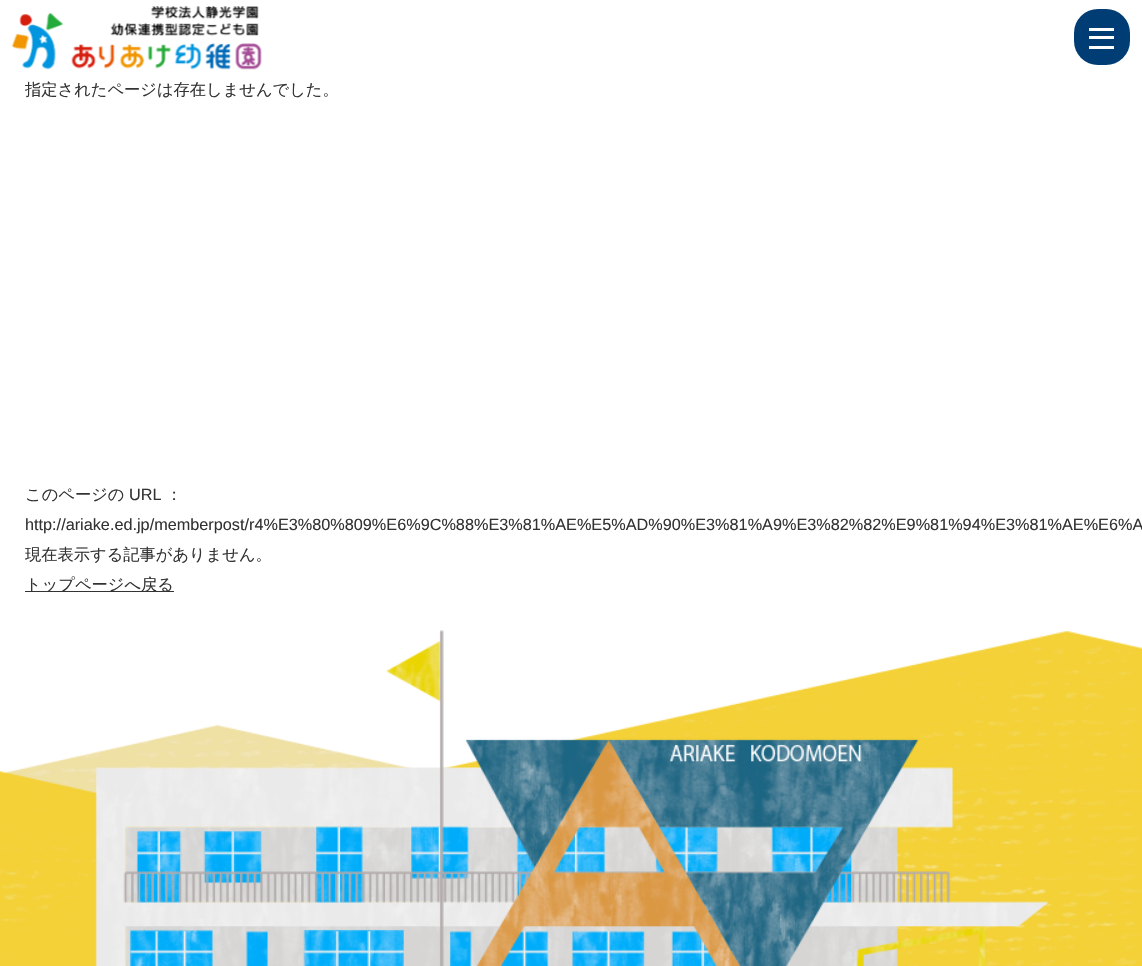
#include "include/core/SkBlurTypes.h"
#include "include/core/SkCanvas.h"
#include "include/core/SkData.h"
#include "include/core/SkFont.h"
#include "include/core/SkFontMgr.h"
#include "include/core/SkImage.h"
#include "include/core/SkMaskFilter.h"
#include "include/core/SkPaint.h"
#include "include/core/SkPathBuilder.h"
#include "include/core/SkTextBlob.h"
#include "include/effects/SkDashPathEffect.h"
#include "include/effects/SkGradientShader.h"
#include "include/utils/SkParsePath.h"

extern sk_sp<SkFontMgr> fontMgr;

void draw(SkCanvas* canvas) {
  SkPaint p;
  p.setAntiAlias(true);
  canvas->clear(SK_ColorWHITE);
  canvas->drawImageRect(SkImages::DeferredFromEncodedData(SkData::MakeFromFileName("images/1.png")), SkRect::MakeLTRB(12, 6, 262, 70), SkSamplingOptions());
  p.setColor(SkColorSetRGB(0, 61, 117));
  canvas->drawRoundRect(SkRect::MakeLTRB(1074, 9, 1130, 65), 24, 24, p);
  p.setColor(SK_ColorWHITE);
  canvas->drawRect(SkRect::MakeLTRB(1089, 36, 1114, 39), p);
  canvas->drawRect(SkRect::MakeLTRB(1089, 28, 1114, 31), p);
  canvas->drawRect(SkRect::MakeLTRB(1089, 46, 1114, 49), p);
  p.setColor(SkColorSetRGB(51, 51, 51));
  canvas->drawRect(SkRect::MakeLTRB(25, 591, 174, 592), p);
  canvas->drawImageRect(SkImages::DeferredFromEncodedData(SkData::MakeFromFileName("images/2.png")), SkRect::MakeLTRB(0, 631, 1142, 966), SkSamplingOptions());
  canvas->drawImageRect(SkImages::DeferredFromEncodedData(SkData::MakeFromFileName("images/3.png")), SkRect::MakeLTRB(95, 630, 1048, 966), SkSamplingOptions());
  SkFont font1(fontMgr->matchFamilyStyle("WenQuanYi Zen Hei", SkFontStyle(500, SkFontStyle::kNormal_Width, SkFontStyle::kUpright_Slant)), 16.25f);
  font1.setSubpixel(true);
  canvas->drawString("指定されたページは存在しませんでした。", 25, 95, font1, p);
  canvas->drawString("このページの", 25, 500, font1, p);
  SkFont font2(fontMgr->matchFamilyStyle("Liberation Sans", SkFontStyle::Normal()), 16.25f);
  font2.setSubpixel(true);
  canvas->drawString("URL", 129, 500, font2, p);
  canvas->drawString("：", 166, 500, font1, p);
  canvas->drawString("http://ariake.ed.jp/memberpost/r4%E3%80%809%E6%9C%88%E3%81%AE%E5%AD%90%E3%81%A9%E3%82%82%E9%81%94%E3%81%AE%E6%A", 25, 530, font2, p);
  canvas->drawString("現在表示する記事がありません。", 25, 560, font1, p);
  canvas->drawString("トップページへ戻る", 25, 590, font1, p);
}
